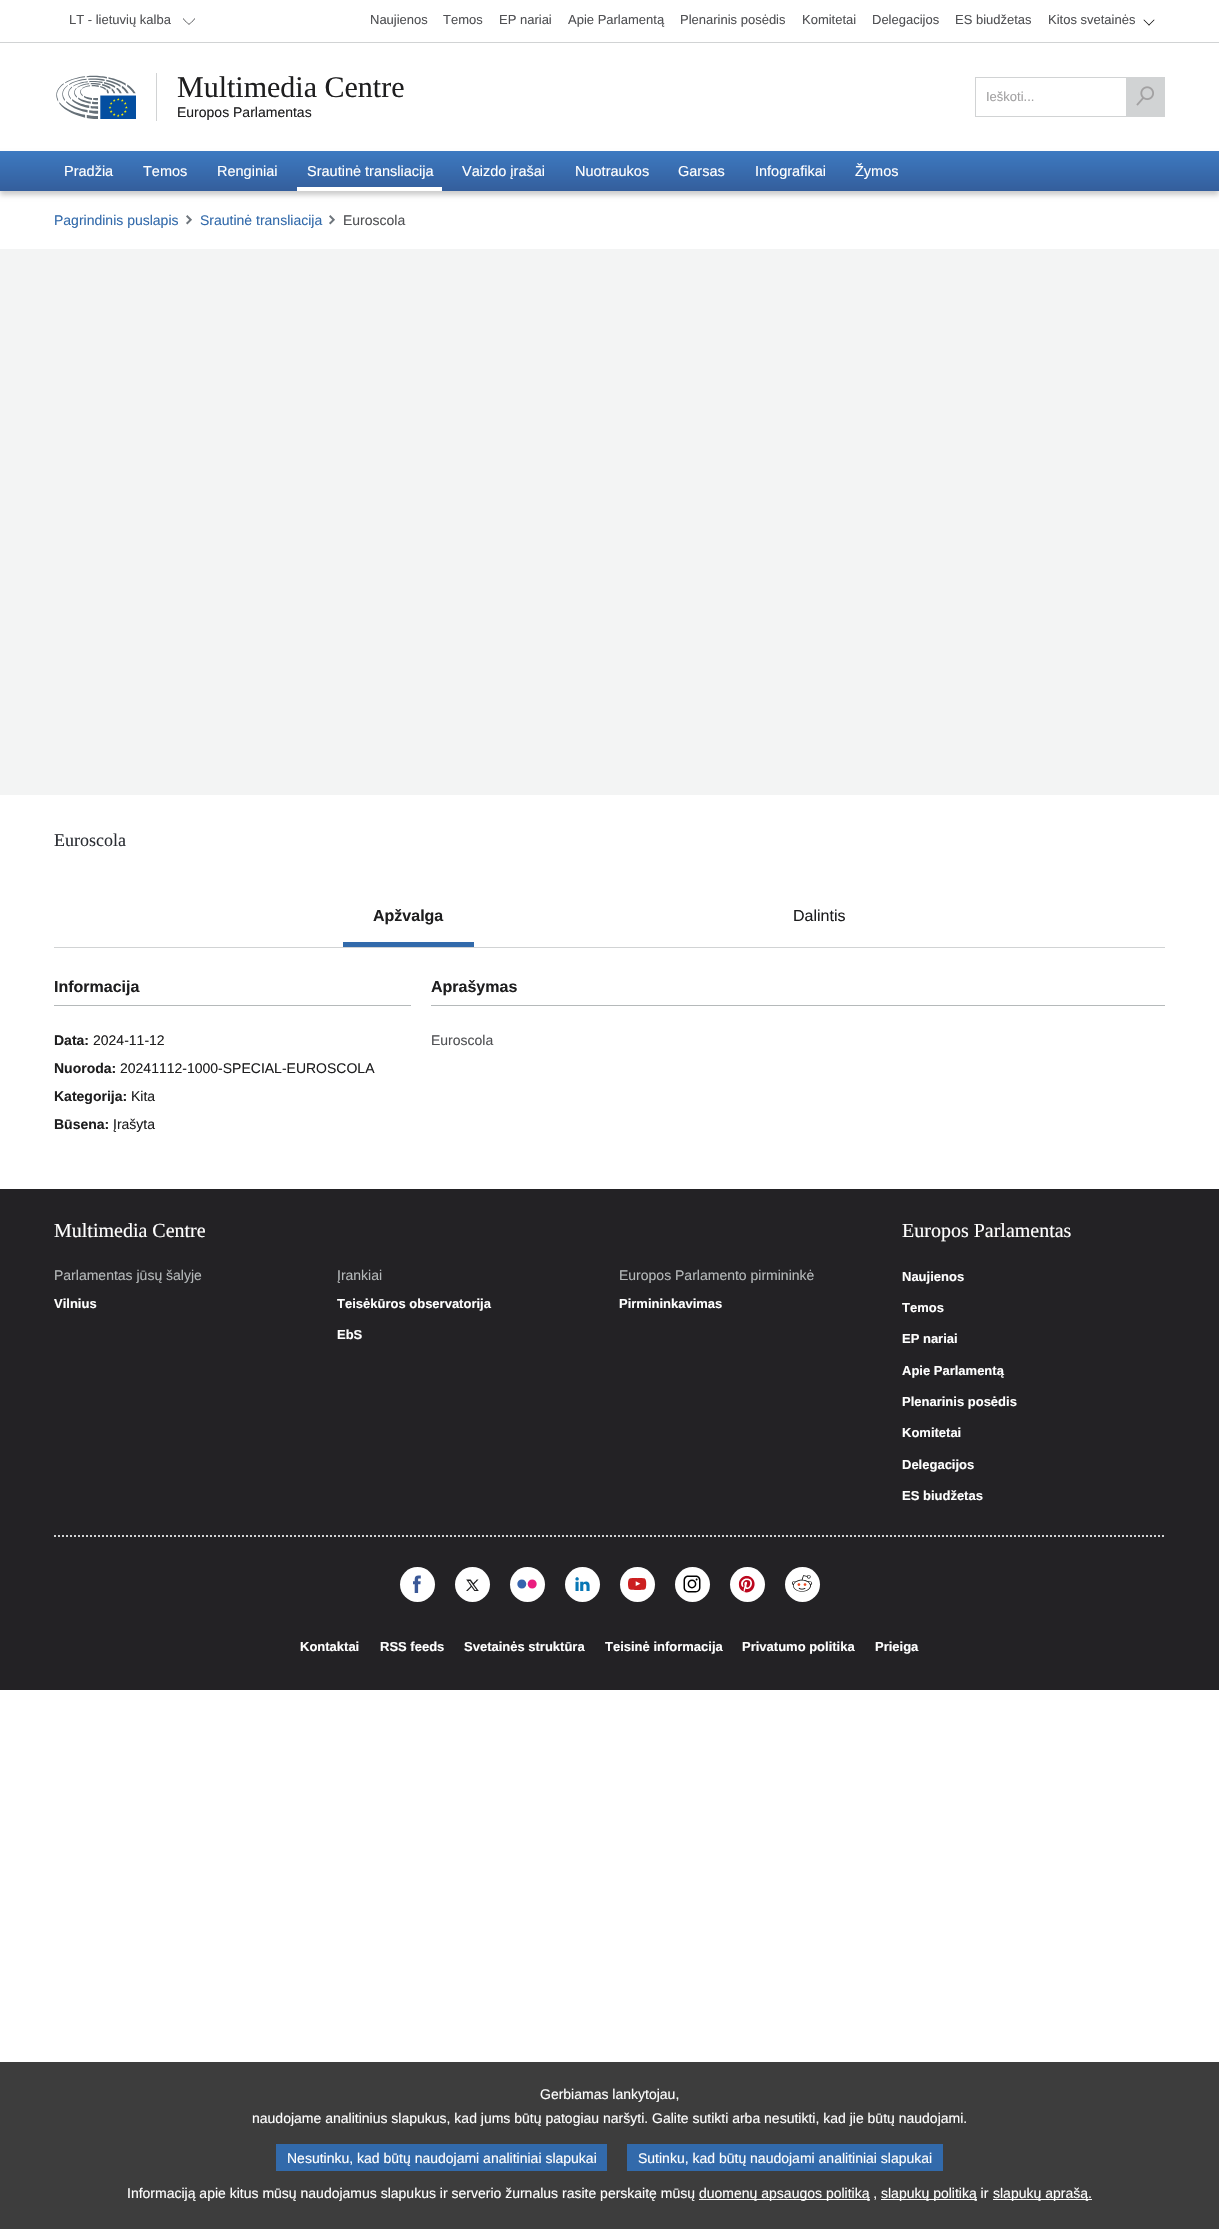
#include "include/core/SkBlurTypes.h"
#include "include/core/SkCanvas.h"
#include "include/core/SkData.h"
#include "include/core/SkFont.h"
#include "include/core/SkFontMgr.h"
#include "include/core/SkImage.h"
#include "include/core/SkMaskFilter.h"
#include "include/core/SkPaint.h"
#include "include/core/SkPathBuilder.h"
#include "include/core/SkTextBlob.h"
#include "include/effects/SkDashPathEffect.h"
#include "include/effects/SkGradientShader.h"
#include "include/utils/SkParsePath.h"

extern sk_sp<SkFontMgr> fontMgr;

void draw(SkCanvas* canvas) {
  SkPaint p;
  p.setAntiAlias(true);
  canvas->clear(SK_ColorWHITE);
  p.setColor(SkColorSetRGB(209, 211, 212));
  canvas->drawRect(SkRect::MakeLTRB(0, 42, 1219, 43), p);
  p.setStyle(SkPaint::kStroke_Style);
  p.setStrokeWidth(1);
  p.setColor(SkColorSetRGB(80, 81, 84));
  canvas->drawPath(SkPathBuilder().moveTo(194.5f, 18.5f).cubicTo(194.5f, 19.5f, 193, 21, 192, 21.5f).cubicTo(189, 25, 189, 25, 186, 21.5f).cubicTo(185, 21, 183.5f, 19.5f, 183.5f, 18.5f).detach(), p);
  p.setStyle(SkPaint::kFill_Style);
  p.setColor(SK_ColorBLACK);
  canvas->drawPath(SkPathBuilder().moveTo(1154, 19.5f).lineTo(1154.5f, 20).lineTo(1149, 25.5f).lineTo(1148.5f, 25).close().detach(), p);
  canvas->drawPath(SkPathBuilder().moveTo(1144, 19.5f).lineTo(1149.5f, 25).lineTo(1149, 25.5f).lineTo(1143.5f, 20).close().detach(), p);
  canvas->drawImageRect(SkImages::DeferredFromEncodedData(SkData::MakeFromFileName("images/1.png")), SkRect::MakeLTRB(56, 75, 136, 119), SkSamplingOptions());
  p.setColor(SkColorSetRGB(209, 211, 212));
  canvas->drawRect(SkRect::MakeLTRB(156, 73, 157, 121), p);
  p.setStyle(SkPaint::kStroke_Style);
  canvas->drawRect(SkRect::MakeLTRB(975.5f, 77.5f, 1164.5f, 116.5f), p);
  p.setStyle(SkPaint::kFill_Style);
  canvas->drawRect(SkRect::MakeLTRB(1126, 78, 1164, 116), p);
  canvas->drawImageRect(SkImages::DeferredFromEncodedData(SkData::MakeFromFileName("images/2.png")), SkRect::MakeLTRB(1136, 86, 1154, 106), SkSamplingOptions());
  p.setColor(SkColorSetARGB(51, 0, 0, 0));
  p.setMaskFilter(SkMaskFilter::MakeBlur(kNormal_SkBlurStyle, 2.5f));
  canvas->drawRect(SkRect::MakeLTRB(0, 155, 1219, 195), p);
  p.setMaskFilter(nullptr);
  {
    const SkColor colors[] = {SkColorSetRGB(61, 122, 193), SkColorSetRGB(52, 94, 156)};
    const float stops[] = {0, 1};
    const SkPoint ends[] = {{610, 151}, {610, 191}};
    p.setShader(SkGradientShader::MakeLinear(ends, colors, stops, 2, SkTileMode::kClamp));
    p.setAlpha(255);
  }
  canvas->drawRect(SkRect::MakeLTRB(0, 151, 1219, 191), p);
  p.setShader(nullptr);
  p.setColor(SK_ColorWHITE);
  canvas->drawRect(SkRect::MakeLTRB(297, 187, 442, 191), p);
  canvas->drawImageRect(SkImages::DeferredFromEncodedData(SkData::MakeFromFileName("images/3.png")), SkRect::MakeLTRB(186, 215, 192, 225), SkSamplingOptions());
  canvas->drawImageRect(SkImages::DeferredFromEncodedData(SkData::MakeFromFileName("images/3.png")), SkRect::MakeLTRB(329, 215, 335, 225), SkSamplingOptions());
  p.setColor(SkColorSetRGB(243, 244, 244));
  canvas->drawRect(SkRect::MakeLTRB(0, 249, 1219, 795), p);
  p.setColor(SkColorSetRGB(209, 211, 212));
  canvas->drawRect(SkRect::MakeLTRB(54, 947, 1165, 948), p);
  p.setColor(SkColorSetRGB(50, 106, 171));
  canvas->drawRect(SkRect::MakeLTRB(343, 942, 474, 947), p);
  p.setColor(SkColorSetRGB(181, 185, 186));
  canvas->drawRect(SkRect::MakeLTRB(54, 1005, 411, 1006), p);
  canvas->drawRect(SkRect::MakeLTRB(431, 1005, 1165, 1006), p);
  p.setColor(SkColorSetRGB(35, 34, 37));
  canvas->drawRect(SkRect::MakeLTRB(0, 1189, 1219, 1690), p);
  p.setStyle(SkPaint::kStroke_Style);
  p.setStrokeWidth(2);
  p.setColor(SkColorSetRGB(209, 211, 212));
  p.setPathEffect(SkDashPathEffect::Make({{2, 2}}, 0));
  canvas->drawPath(SkPathBuilder().moveTo(54, 1536).lineTo(1165, 1536).detach(), p);
  p.setPathEffect(nullptr);
  p.setStyle(SkPaint::kFill_Style);
  p.setColor(SK_ColorWHITE);
  canvas->drawCircle(417.5f, 1584.5f, 17.5f, p);
  canvas->drawImageRect(SkImages::DeferredFromEncodedData(SkData::MakeFromFileName("images/4.png")), SkRect::MakeLTRB(413, 1575, 421, 1593), SkSamplingOptions());
  canvas->drawCircle(472.5f, 1584.5f, 17.5f, p);
  canvas->drawImageRect(SkImages::DeferredFromEncodedData(SkData::MakeFromFileName("images/5.png")), SkRect::MakeLTRB(466, 1579, 479, 1591), SkSamplingOptions());
  canvas->drawCircle(527.5f, 1584.5f, 17.5f, p);
  canvas->drawImageRect(SkImages::DeferredFromEncodedData(SkData::MakeFromFileName("images/6.png")), SkRect::MakeLTRB(517, 1579, 537, 1589), SkSamplingOptions());
  canvas->drawCircle(582.5f, 1584.5f, 17.5f, p);
  canvas->drawImageRect(SkImages::DeferredFromEncodedData(SkData::MakeFromFileName("images/7.png")), SkRect::MakeLTRB(575, 1577, 590, 1591), SkSamplingOptions());
  canvas->drawCircle(637.5f, 1584.5f, 17.5f, p);
  canvas->drawImageRect(SkImages::DeferredFromEncodedData(SkData::MakeFromFileName("images/8.png")), SkRect::MakeLTRB(628, 1578, 647, 1590), SkSamplingOptions());
  canvas->drawCircle(692.5f, 1584.5f, 17.5f, p);
  canvas->drawImageRect(SkImages::DeferredFromEncodedData(SkData::MakeFromFileName("images/9.png")), SkRect::MakeLTRB(683, 1575, 701, 1593), SkSamplingOptions());
  canvas->drawCircle(747.5f, 1584.5f, 17.5f, p);
  canvas->drawImageRect(SkImages::DeferredFromEncodedData(SkData::MakeFromFileName("images/10.png")), SkRect::MakeLTRB(738, 1575, 755, 1593), SkSamplingOptions());
  canvas->drawCircle(802.5f, 1584.5f, 17.5f, p);
  canvas->drawImageRect(SkImages::DeferredFromEncodedData(SkData::MakeFromFileName("images/11.png")), SkRect::MakeLTRB(792, 1575, 813, 1592), SkSamplingOptions());
  p.setColor(SkColorSetRGB(61, 61, 61));
  canvas->drawRect(SkRect::MakeLTRB(0, 2062, 1219, 2229), p);
  p.setColor(SkColorSetRGB(50, 106, 171));
  canvas->drawRect(SkRect::MakeLTRB(276, 2144, 607, 2171), p);
  canvas->drawRect(SkRect::MakeLTRB(627, 2144, 943, 2171), p);
  p.setColor(SK_ColorWHITE);
  canvas->drawRect(SkRect::MakeLTRB(699, 2199, 870, 2200), p);
  canvas->drawRect(SkRect::MakeLTRB(881, 2199, 977, 2200), p);
  canvas->drawRect(SkRect::MakeLTRB(993, 2199, 1092, 2200), p);
  SkFont font1(fontMgr->matchFamilyStyle("Liberation Sans", SkFontStyle::Normal()), 13);
  font1.setSubpixel(true);
  p.setColor(SkColorSetRGB(80, 81, 84));
  canvas->drawString("LT - lietuvių kalba", 69, 24, font1, p);
  canvas->drawString("Naujienos", 370, 24, font1, p);
  canvas->drawString("Temos", 443, 24, font1, p);
  canvas->drawString("EP nariai", 499, 24, font1, p);
  canvas->drawString("Apie Parlamentą", 568, 24, font1, p);
  canvas->drawString("Plenarinis posėdis", 680, 24, font1, p);
  canvas->drawString("Komitetai", 802, 24, font1, p);
  canvas->drawString("Delegacijos", 872, 24, font1, p);
  canvas->drawString("ES biudžetas", 955, 24, font1, p);
  canvas->drawString("Kitos svetainės", 1048, 24, font1, p);
  SkFont font2(fontMgr->matchFamilyStyle("Liberation Serif", SkFontStyle::Normal()), 30);
  font2.setSubpixel(true);
  p.setColor(SkColorSetRGB(30, 30, 31));
  canvas->drawString("Multimedia Centre", 177, 97, font2, p);
  SkFont font3(fontMgr->matchFamilyStyle("Liberation Sans", SkFontStyle::Normal()), 14);
  font3.setSubpixel(true);
  canvas->drawString("Europos Parlamentas", 177, 117, font3, p);
  p.setColor(SkColorSetRGB(162, 161, 162));
  canvas->drawString("Ieškoti...", 986, 101, font1, p);
  SkFont font4(fontMgr->matchFamilyStyle("Liberation Sans", SkFontStyle::Normal()), 14.5f);
  font4.setSubpixel(true);
  p.setColor(SK_ColorWHITE);
  canvas->drawString("Pradžia", 64, 176, font4, p);
  canvas->drawString("Temos", 143, 176, font4, p);
  canvas->drawString("Renginiai", 217, 176, font4, p);
  canvas->drawString("Srautinė transliacija", 307, 176, font4, p);
  canvas->drawString("Vaizdo įrašai", 462, 176, font4, p);
  canvas->drawString("Nuotraukos", 575, 176, font4, p);
  canvas->drawString("Garsas", 678, 176, font4, p);
  canvas->drawString("Infografikai", 755, 176, font4, p);
  canvas->drawString("Žymos", 855, 176, font4, p);
  p.setColor(SkColorSetRGB(50, 106, 171));
  canvas->drawString("Pagrindinis puslapis", 54, 225, font3, p);
  canvas->drawString("Srautinė transliacija", 200, 225, font3, p);
  p.setColor(SkColorSetRGB(80, 81, 84));
  canvas->drawString("Euroscola", 343, 225, font3, p);
  SkFont font5(fontMgr->matchFamilyStyle("Liberation Serif", SkFontStyle::Normal()), 18);
  font5.setSubpixel(true);
  p.setColor(SkColorSetRGB(43, 46, 52));
  canvas->drawString("Euroscola", 54, 846, font5, p);
  SkFont font6(fontMgr->matchFamilyStyle("Liberation Sans", SkFontStyle::Bold()), 16);
  font6.setSubpixel(true);
  p.setColor(SkColorSetRGB(30, 30, 31));
  canvas->drawString("Apžvalga", 373, 921, font6, p);
  SkFont font7(fontMgr->matchFamilyStyle("Liberation Sans", SkFontStyle::Normal()), 16);
  font7.setSubpixel(true);
  canvas->drawString("Dalintis", 793, 921, font7, p);
  canvas->drawString("Informacija", 54, 992, font6, p);
  SkFont font8(fontMgr->matchFamilyStyle("Liberation Sans", SkFontStyle::Bold()), 14);
  font8.setSubpixel(true);
  canvas->drawString("Data:", 54, 1045, font8, p);
  canvas->drawString("2024-11-12", 93, 1045, font3, p);
  canvas->drawString("Nuoroda:", 54, 1073, font8, p);
  canvas->drawString("20241112-1000-SPECIAL-EUROSCOLA", 120, 1073, font3, p);
  canvas->drawString("Kategorija:", 54, 1101, font8, p);
  canvas->drawString("Kita", 131, 1101, font3, p);
  canvas->drawString("Būsena:", 54, 1129, font8, p);
  canvas->drawString("Įrašyta", 113, 1129, font3, p);
  canvas->drawString("Aprašymas", 431, 992, font6, p);
  p.setColor(SkColorSetRGB(80, 81, 84));
  canvas->drawString("Euroscola", 431, 1045, font3, p);
  SkFont font9(fontMgr->matchFamilyStyle("Liberation Serif", SkFontStyle::Normal()), 20);
  font9.setSubpixel(true);
  p.setColor(SK_ColorWHITE);
  canvas->drawString("Multimedia Centre", 54, 1237, font9, p);
  p.setColor(SkColorSetRGB(181, 185, 186));
  canvas->drawString("Parlamentas jūsų šalyje", 54, 1280, font3, p);
  SkFont font10(fontMgr->matchFamilyStyle("Liberation Sans", SkFontStyle::Bold()), 13);
  font10.setSubpixel(true);
  p.setColor(SK_ColorWHITE);
  canvas->drawString("Vilnius", 54, 1308, font10, p);
  p.setColor(SkColorSetRGB(181, 185, 186));
  canvas->drawString("Įrankiai", 337, 1280, font3, p);
  p.setColor(SK_ColorWHITE);
  canvas->drawString("Teisėkūros observatorija", 337, 1308, font10, p);
  canvas->drawString("EbS", 337, 1339, font10, p);
  p.setColor(SkColorSetRGB(181, 185, 186));
  canvas->drawString("Europos Parlamento pirmininkė", 619, 1280, font3, p);
  p.setColor(SK_ColorWHITE);
  canvas->drawString("Pirmininkavimas", 619, 1308, font10, p);
  canvas->drawString("Europos Parlamentas", 902, 1237, font9, p);
  canvas->drawString("Naujienos", 902, 1281, font10, p);
  canvas->drawString("Temos", 902, 1312, font10, p);
  canvas->drawString("EP nariai", 902, 1343, font10, p);
  canvas->drawString("Apie Parlamentą", 902, 1375, font10, p);
  canvas->drawString("Plenarinis posėdis", 902, 1406, font10, p);
  canvas->drawString("Komitetai", 902, 1437, font10, p);
  canvas->drawString("Delegacijos", 902, 1469, font10, p);
  canvas->drawString("ES biudžetas", 902, 1500, font10, p);
  canvas->drawString("Kontaktai", 300, 1651, font10, p);
  canvas->drawString("RSS feeds", 380, 1651, font10, p);
  canvas->drawString("Svetainės struktūra", 464, 1651, font10, p);
  canvas->drawString("Teisinė informacija", 605, 1651, font10, p);
  canvas->drawString("Privatumo politika", 742, 1651, font10, p);
  canvas->drawString("Prieiga", 875, 1651, font10, p);
  canvas->drawString("Gerbiamas lankytojau,", 540, 2099, font3, p);
  canvas->drawString("naudojame analitinius slapukus, kad jums būtų patogiau naršyti. Galite sutikti arba nesutikti, kad jie būtų naudojami.", 252, 2123, font3, p);
  canvas->drawString("Nesutinku, kad būtų naudojami analitiniai slapukai", 287, 2163, font3, p);
  canvas->drawString("Sutinku, kad būtų naudojami analitiniai slapukai", 638, 2163, font3, p);
  canvas->drawString("Informaciją apie kitus mūsų naudojamus slapukus ir serverio žurnalus rasite perskaitę mūsų", 127, 2198, font3, p);
  canvas->drawString("duomenų apsaugos politiką ,", 699, 2198, font3, p);
  canvas->drawString("slapukų politiką ir", 881, 2198, font3, p);
  canvas->drawString("slapukų aprašą.", 993, 2198, font3, p);
}
